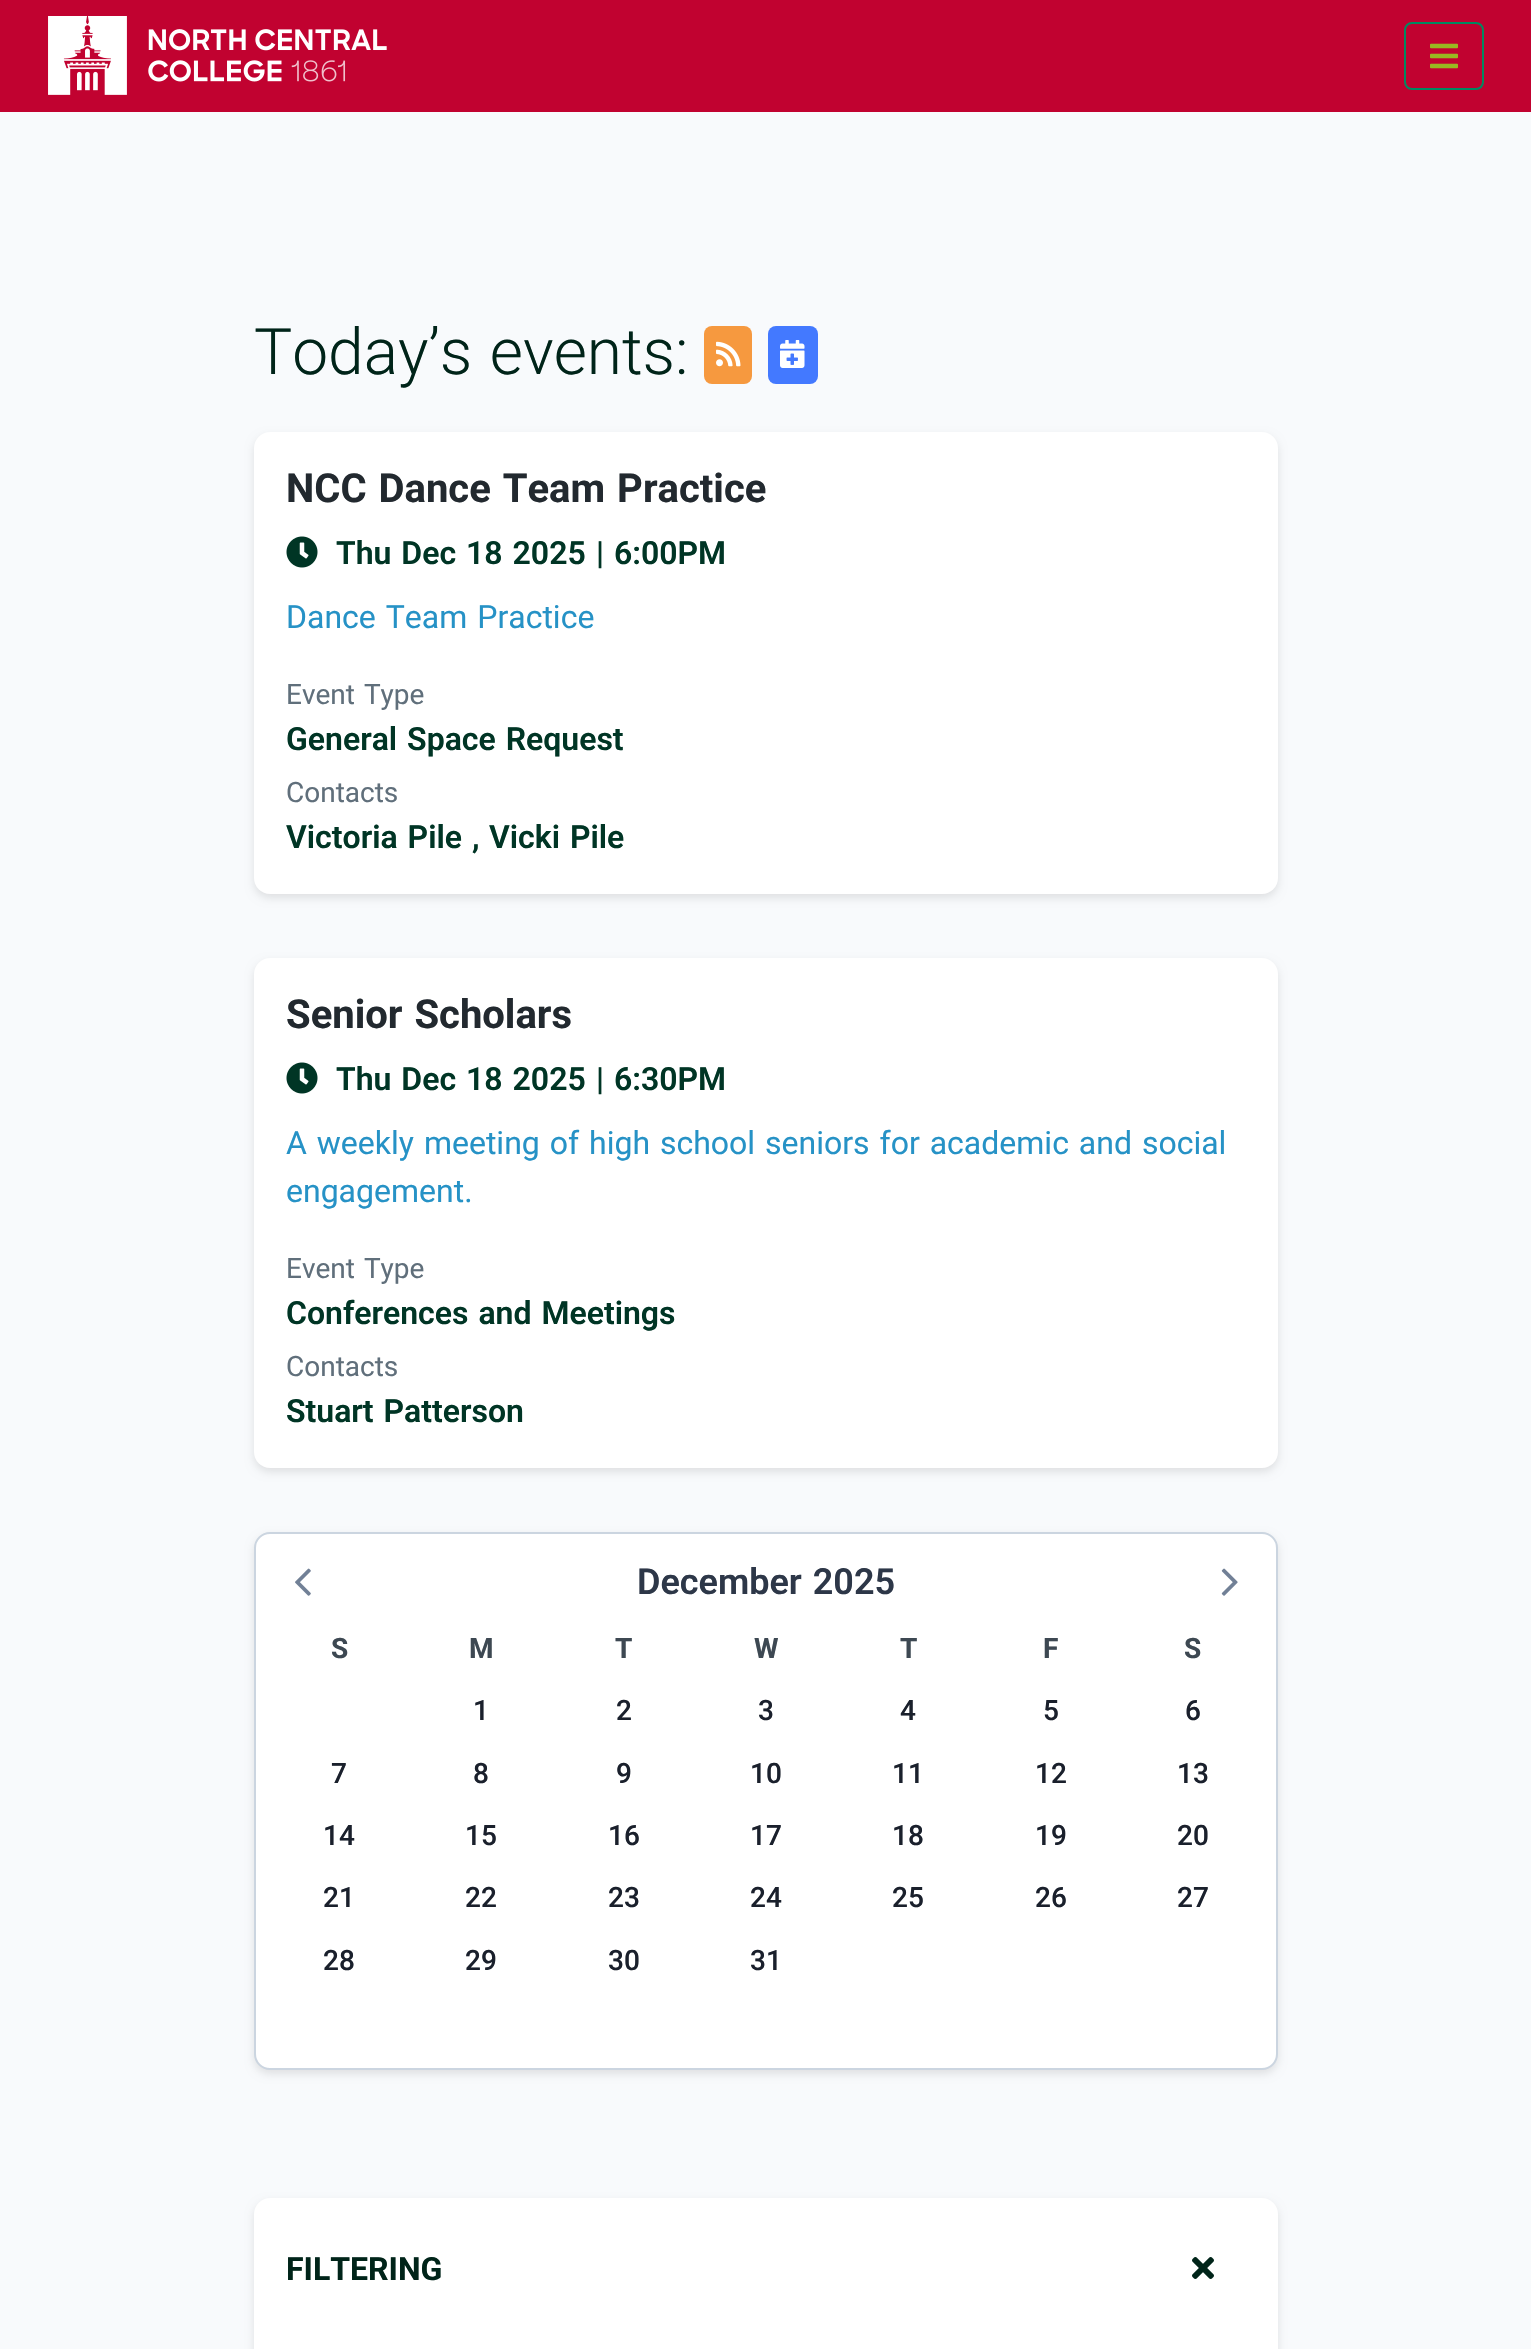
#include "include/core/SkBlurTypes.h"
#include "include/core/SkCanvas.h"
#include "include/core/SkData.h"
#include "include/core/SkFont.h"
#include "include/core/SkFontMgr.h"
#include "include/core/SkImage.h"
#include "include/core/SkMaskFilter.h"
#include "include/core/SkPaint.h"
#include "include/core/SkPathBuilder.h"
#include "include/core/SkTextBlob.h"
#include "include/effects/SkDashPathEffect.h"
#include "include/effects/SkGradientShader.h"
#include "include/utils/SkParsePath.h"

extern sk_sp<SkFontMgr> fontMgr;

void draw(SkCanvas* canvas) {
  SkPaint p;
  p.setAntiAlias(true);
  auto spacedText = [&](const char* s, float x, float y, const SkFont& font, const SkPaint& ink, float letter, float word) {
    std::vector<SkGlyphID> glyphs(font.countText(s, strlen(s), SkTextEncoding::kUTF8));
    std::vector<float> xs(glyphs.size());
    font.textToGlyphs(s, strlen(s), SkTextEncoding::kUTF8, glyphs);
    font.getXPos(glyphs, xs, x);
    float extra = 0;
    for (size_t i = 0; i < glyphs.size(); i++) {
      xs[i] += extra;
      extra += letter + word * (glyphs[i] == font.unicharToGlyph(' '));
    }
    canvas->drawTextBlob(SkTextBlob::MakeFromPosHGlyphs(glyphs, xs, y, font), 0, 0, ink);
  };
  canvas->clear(SkColorSetRGB(248, 250, 252));
  p.setColor(SkColorSetRGB(193, 2, 48));
  canvas->drawRect(SkRect::MakeLTRB(0, 0, 1531, 112), p);
  canvas->drawImageRect(SkImages::DeferredFromEncodedData(SkData::MakeFromFileName("images/1.png")), SkRect::MakeLTRB(48, 16, 387, 95), SkSamplingOptions());
  p.setStyle(SkPaint::kStroke_Style);
  p.setStrokeWidth(2);
  p.setColor(SkColorSetRGB(0, 138, 97));
  canvas->drawRoundRect(SkRect::MakeLTRB(1405, 23, 1483, 89), 7, 7, p);
  canvas->drawImageRect(SkImages::DeferredFromEncodedData(SkData::MakeFromFileName("images/2.png")), SkRect::MakeLTRB(1430, 43, 1458, 69), SkSamplingOptions());
  p.setStyle(SkPaint::kFill_Style);
  p.setColor(SkColorSetRGB(246, 153, 63));
  canvas->drawRoundRect(SkRect::MakeLTRB(704, 326, 752, 384), 8, 8, p);
  canvas->drawImageRect(SkImages::DeferredFromEncodedData(SkData::MakeFromFileName("images/3.png")), SkRect::MakeLTRB(716, 341, 741, 367), SkSamplingOptions());
  p.setColor(SkColorSetRGB(67, 121, 255));
  canvas->drawRoundRect(SkRect::MakeLTRB(768, 326, 818, 384), 8, 8, p);
  canvas->drawImageRect(SkImages::DeferredFromEncodedData(SkData::MakeFromFileName("images/4.png")), SkRect::MakeLTRB(780, 340, 805, 368), SkSamplingOptions());
  p.setColor(SkColorSetARGB(26, 0, 0, 0));
  p.setMaskFilter(SkMaskFilter::MakeBlur(kNormal_SkBlurStyle, 4));
  canvas->drawRoundRect(SkRect::MakeLTRB(254, 436, 1278, 898), 16, 16, p);
  p.setMaskFilter(nullptr);
  p.setColor(SK_ColorWHITE);
  canvas->drawRoundRect(SkRect::MakeLTRB(254, 432, 1278, 894), 16, 16, p);
  canvas->drawImageRect(SkImages::DeferredFromEncodedData(SkData::MakeFromFileName("images/5.png")), SkRect::MakeLTRB(286, 536, 318, 568), SkSamplingOptions());
  p.setColor(SkColorSetARGB(26, 0, 0, 0));
  p.setMaskFilter(SkMaskFilter::MakeBlur(kNormal_SkBlurStyle, 4));
  canvas->drawRoundRect(SkRect::MakeLTRB(254, 962, 1278, 1472), 16, 16, p);
  p.setMaskFilter(nullptr);
  p.setColor(SK_ColorWHITE);
  canvas->drawRoundRect(SkRect::MakeLTRB(254, 958, 1278, 1468), 16, 16, p);
  canvas->drawImageRect(SkImages::DeferredFromEncodedData(SkData::MakeFromFileName("images/5.png")), SkRect::MakeLTRB(286, 1062, 318, 1094), SkSamplingOptions());
  p.setColor(SkColorSetARGB(26, 0, 0, 0));
  p.setMaskFilter(SkMaskFilter::MakeBlur(kNormal_SkBlurStyle, 4));
  canvas->drawRoundRect(SkRect::MakeLTRB(254, 1536, 1278, 2074), 16, 16, p);
  p.setMaskFilter(nullptr);
  p.setColor(SK_ColorWHITE);
  canvas->drawRoundRect(SkRect::MakeLTRB(255, 1533, 1277, 2069), 15, 15, p);
  p.setStyle(SkPaint::kStroke_Style);
  p.setColor(SkColorSetRGB(203, 213, 224));
  canvas->drawRoundRect(SkRect::MakeLTRB(255, 1533, 1277, 2069), 15, 15, p);
  canvas->drawImageRect(SkImages::DeferredFromEncodedData(SkData::MakeFromFileName("images/6.png")), SkRect::MakeLTRB(295, 1568, 311, 1596), SkSamplingOptions());
  canvas->drawImageRect(SkImages::DeferredFromEncodedData(SkData::MakeFromFileName("images/7.png")), SkRect::MakeLTRB(1221, 1568, 1238, 1596), SkSamplingOptions());
  p.setStyle(SkPaint::kFill_Style);
  p.setColor(SkColorSetARGB(26, 0, 0, 0));
  p.setMaskFilter(SkMaskFilter::MakeBlur(kNormal_SkBlurStyle, 4));
  canvas->drawRoundRect(SkRect::MakeLTRB(254, 2202, 1278, 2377), 16, 16, p);
  p.setMaskFilter(nullptr);
  p.setColor(SK_ColorWHITE);
  canvas->drawRoundRect(SkRect::MakeLTRB(254, 2198, 1278, 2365), 16, 16, p);
  canvas->drawImageRect(SkImages::DeferredFromEncodedData(SkData::MakeFromFileName("images/8.png")), SkRect::MakeLTRB(1192, 2257, 1214, 2279), SkSamplingOptions());
  SkFont font1(fontMgr->matchFamilyStyle("Roboto", SkFontStyle(300, SkFontStyle::kNormal_Width, SkFontStyle::kUpright_Slant)), 64);
  font1.setSubpixel(true);
  p.setColor(SkColorSetRGB(0, 36, 25));
  spacedText("Today’s events:", 254, 374, font1, p, 0, 2);
  SkFont font2(fontMgr->matchFamilyStyle("Roboto", SkFontStyle::Bold()), 40);
  font2.setSubpixel(true);
  p.setColor(SkColorSetRGB(34, 41, 47));
  spacedText("NCC Dance Team Practice", 286, 502, font2, p, 0, 2);
  SkFont font3(fontMgr->matchFamilyStyle("Roboto", SkFontStyle(600, SkFontStyle::kNormal_Width, SkFontStyle::kUpright_Slant)), 32);
  font3.setSubpixel(true);
  p.setColor(SkColorSetRGB(0, 53, 37));
  spacedText("Thu Dec 18 2025", 336, 564, font3, p, 0, 2);
  canvas->drawString("|", 596, 564, font3, p);
  canvas->drawString("6:00PM", 614, 564, font3, p);
  SkFont font4(fontMgr->matchFamilyStyle("Roboto", SkFontStyle::Normal()), 32);
  font4.setSubpixel(true);
  p.setColor(SkColorSetRGB(38, 146, 198));
  spacedText("Dance Team Practice", 286, 628, font4, p, 0, 2);
  SkFont font5(fontMgr->matchFamilyStyle("Roboto", SkFontStyle::Normal()), 28);
  font5.setSubpixel(true);
  p.setColor(SkColorSetRGB(96, 111, 123));
  spacedText("Event Type", 286, 704, font5, p, 0, 2);
  p.setColor(SkColorSetRGB(0, 53, 37));
  spacedText("General Space Request", 286, 750, font3, p, 0, 2);
  p.setColor(SkColorSetRGB(96, 111, 123));
  canvas->drawString("Contacts", 286, 802, font5, p);
  p.setColor(SkColorSetRGB(0, 53, 37));
  spacedText("Victoria Pile", 286, 848, font3, p, 0, 2);
  canvas->drawString(",", 472, 848, font3, p);
  spacedText("Vicki Pile", 489, 848, font3, p, 0, 2);
  p.setColor(SkColorSetRGB(34, 41, 47));
  spacedText("Senior Scholars", 286, 1028, font2, p, 0, 2);
  p.setColor(SkColorSetRGB(0, 53, 37));
  spacedText("Thu Dec 18 2025", 336, 1090, font3, p, 0, 2);
  canvas->drawString("|", 596, 1090, font3, p);
  canvas->drawString("6:30PM", 614, 1090, font3, p);
  p.setColor(SkColorSetRGB(38, 146, 198));
  spacedText("A weekly meeting of high school seniors for academic and social", 286, 1154, font4, p, 0, 2);
  canvas->drawString("engagement.", 286, 1202, font4, p);
  p.setColor(SkColorSetRGB(96, 111, 123));
  spacedText("Event Type", 286, 1278, font5, p, 0, 2);
  p.setColor(SkColorSetRGB(0, 53, 37));
  spacedText("Conferences and Meetings", 286, 1324, font3, p, 0, 2);
  p.setColor(SkColorSetRGB(96, 111, 123));
  canvas->drawString("Contacts", 286, 1376, font5, p);
  p.setColor(SkColorSetRGB(0, 53, 37));
  spacedText("Stuart Patterson", 286, 1422, font3, p, 0, 2);
  SkFont font6(fontMgr->matchFamilyStyle("Roboto", SkFontStyle(600, SkFontStyle::kNormal_Width, SkFontStyle::kUpright_Slant)), 36);
  font6.setSubpixel(true);
  p.setColor(SkColorSetRGB(45, 55, 72));
  spacedText("December 2025", 637, 1594, font6, p, 0, 2);
  SkFont font7(fontMgr->matchFamilyStyle("Roboto", SkFontStyle::Bold()), 28);
  font7.setSubpixel(true);
  p.setColor(SkColorSetRGB(61, 72, 82));
  canvas->drawString("S", 331, 1658, font7, p);
  canvas->drawString("M", 469, 1658, font7, p);
  canvas->drawString("T", 615, 1658, font7, p);
  canvas->drawString("W", 754, 1658, font7, p);
  canvas->drawString("T", 900, 1658, font7, p);
  canvas->drawString("F", 1043, 1658, font7, p);
  canvas->drawString("S", 1184, 1658, font7, p);
  SkFont font8(fontMgr->matchFamilyStyle("Roboto", SkFontStyle(500, SkFontStyle::kNormal_Width, SkFontStyle::kUpright_Slant)), 28);
  font8.setSubpixel(true);
  p.setColor(SkColorSetRGB(26, 32, 44));
  canvas->drawString("1", 473, 1720, font8, p);
  canvas->drawString("2", 616, 1720, font8, p);
  canvas->drawString("3", 758, 1720, font8, p);
  canvas->drawString("4", 900, 1720, font8, p);
  canvas->drawString("5", 1043, 1720, font8, p);
  canvas->drawString("6", 1185, 1720, font8, p);
  canvas->drawString("7", 331, 1783, font8, p);
  canvas->drawString("8", 473, 1783, font8, p);
  canvas->drawString("9", 616, 1783, font8, p);
  canvas->drawString("10", 750, 1783, font8, p);
  canvas->drawString("11", 892, 1783, font8, p);
  canvas->drawString("12", 1035, 1783, font8, p);
  canvas->drawString("13", 1177, 1783, font8, p);
  canvas->drawString("14", 323, 1845, font8, p);
  canvas->drawString("15", 465, 1845, font8, p);
  canvas->drawString("16", 608, 1845, font8, p);
  canvas->drawString("17", 750, 1845, font8, p);
  canvas->drawString("18", 892, 1845, font8, p);
  canvas->drawString("19", 1035, 1845, font8, p);
  canvas->drawString("20", 1177, 1845, font8, p);
  canvas->drawString("21", 323, 1907, font8, p);
  canvas->drawString("22", 465, 1907, font8, p);
  canvas->drawString("23", 608, 1907, font8, p);
  canvas->drawString("24", 750, 1907, font8, p);
  canvas->drawString("25", 892, 1907, font8, p);
  canvas->drawString("26", 1035, 1907, font8, p);
  canvas->drawString("27", 1177, 1907, font8, p);
  canvas->drawString("28", 323, 1970, font8, p);
  canvas->drawString("29", 465, 1970, font8, p);
  canvas->drawString("30", 608, 1970, font8, p);
  canvas->drawString("31", 750, 1970, font8, p);
  SkFont font9(fontMgr->matchFamilyStyle("Roboto", SkFontStyle::Bold()), 32);
  font9.setSubpixel(true);
  p.setColor(SkColorSetRGB(0, 36, 25));
  canvas->drawString("FILTERING", 286, 2280, font9, p);
}
